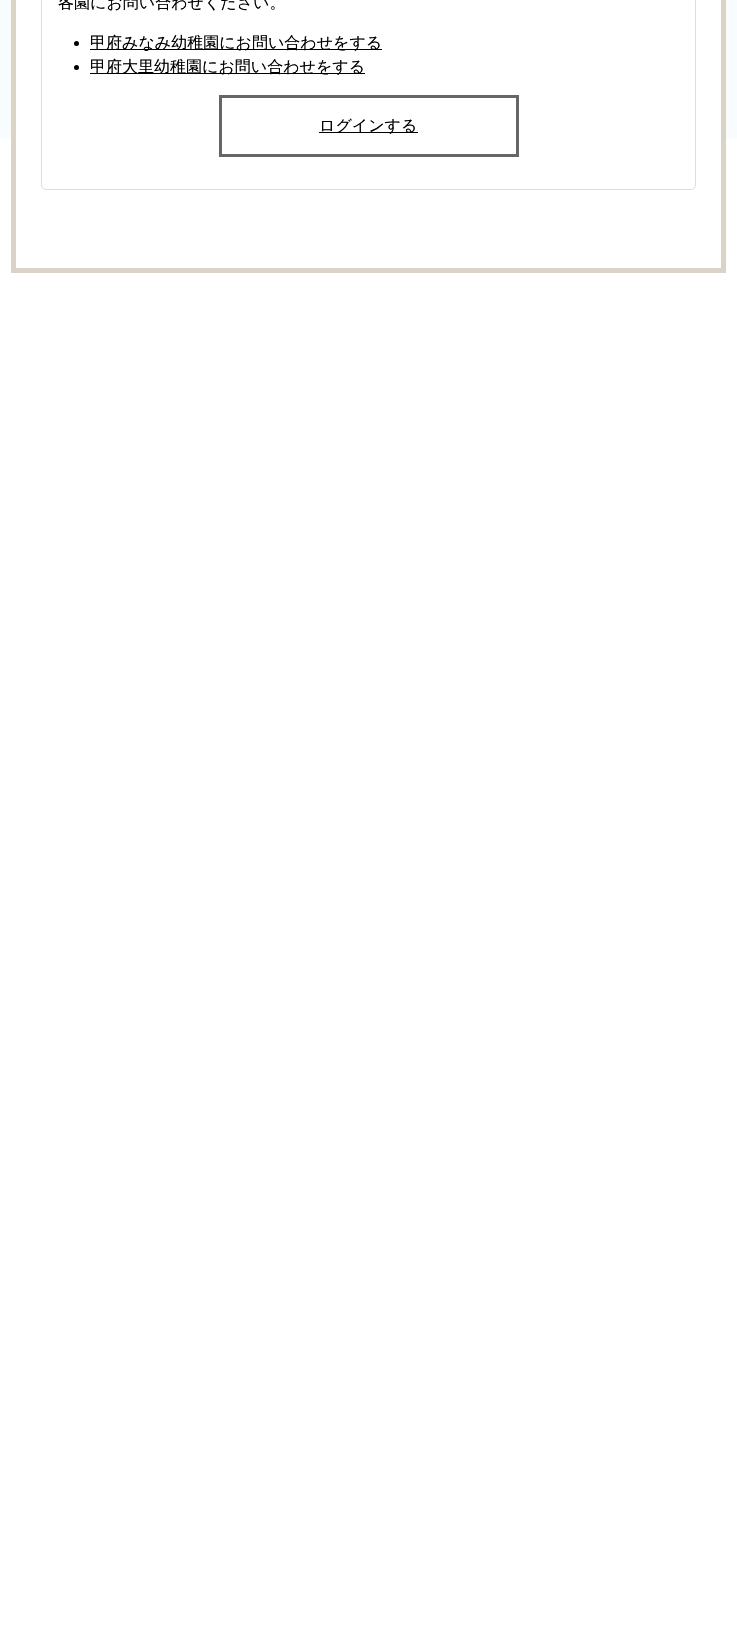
#include "include/core/SkBlurTypes.h"
#include "include/core/SkCanvas.h"
#include "include/core/SkData.h"
#include "include/core/SkFont.h"
#include "include/core/SkFontMgr.h"
#include "include/core/SkImage.h"
#include "include/core/SkMaskFilter.h"
#include "include/core/SkPaint.h"
#include "include/core/SkPathBuilder.h"
#include "include/core/SkTextBlob.h"
#include "include/effects/SkDashPathEffect.h"
#include "include/effects/SkGradientShader.h"
#include "include/utils/SkParsePath.h"

extern sk_sp<SkFontMgr> fontMgr;

void draw(SkCanvas* canvas) {
  SkPaint p;
  p.setAntiAlias(true);
  canvas->clear(SK_ColorWHITE);
  p.setColor(SkColorSetRGB(249, 252, 254));
  canvas->drawRect(SkRect::MakeLTRB(0, 0, 737, 139), p);
  p.setColor(SK_ColorWHITE);
  canvas->drawRect(SkRect::MakeLTRB(16, 0, 721, 139), p);
  p.setStyle(SkPaint::kStroke_Style);
  p.setStrokeWidth(5);
  p.setColor(SkColorSetRGB(218, 212, 199));
  canvas->drawRect(SkRect::MakeLTRB(13.5f, -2.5f, 723.5f, 270.5f), p);
  p.setStrokeWidth(1);
  p.setColor(SkColorSetRGB(221, 221, 221));
  canvas->drawRoundRect(SkRect::MakeLTRB(41.5f, -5.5f, 695.5f, 189.5f), 4.5f, 4.5f, p);
  p.setStyle(SkPaint::kFill_Style);
  p.setColor(SK_ColorBLACK);
  canvas->drawCircle(76.5f, 43.5f, 2.5f, p);
  canvas->drawRect(SkRect::MakeLTRB(90, 49, 382, 50), p);
  canvas->drawCircle(76.5f, 67.5f, 2.5f, p);
  canvas->drawRect(SkRect::MakeLTRB(90, 73, 365, 74), p);
  p.setStyle(SkPaint::kStroke_Style);
  p.setStrokeWidth(3);
  p.setColor(SkColorSetRGB(102, 102, 102));
  canvas->drawRect(SkRect::MakeLTRB(220.5f, 96.5f, 517.5f, 155.5f), p);
  p.setStyle(SkPaint::kFill_Style);
  p.setColor(SK_ColorBLACK);
  canvas->drawRect(SkRect::MakeLTRB(319, 132, 418, 133), p);
  SkFont font1(fontMgr->matchFamilyStyle("WenQuanYi Zen Hei", SkFontStyle(500, SkFontStyle::kNormal_Width, SkFontStyle::kUpright_Slant)), 16);
  font1.setSubpixel(true);
  canvas->drawString("各園にお問い合わせください。", 58, 8, font1, p);
  canvas->drawString("甲府みなみ幼稚園にお問い合わせをする", 90, 48, font1, p);
  canvas->drawString("甲府大里幼稚園にお問い合わせをする", 90, 72, font1, p);
  canvas->drawString("ログインする", 319, 131, font1, p);
}
